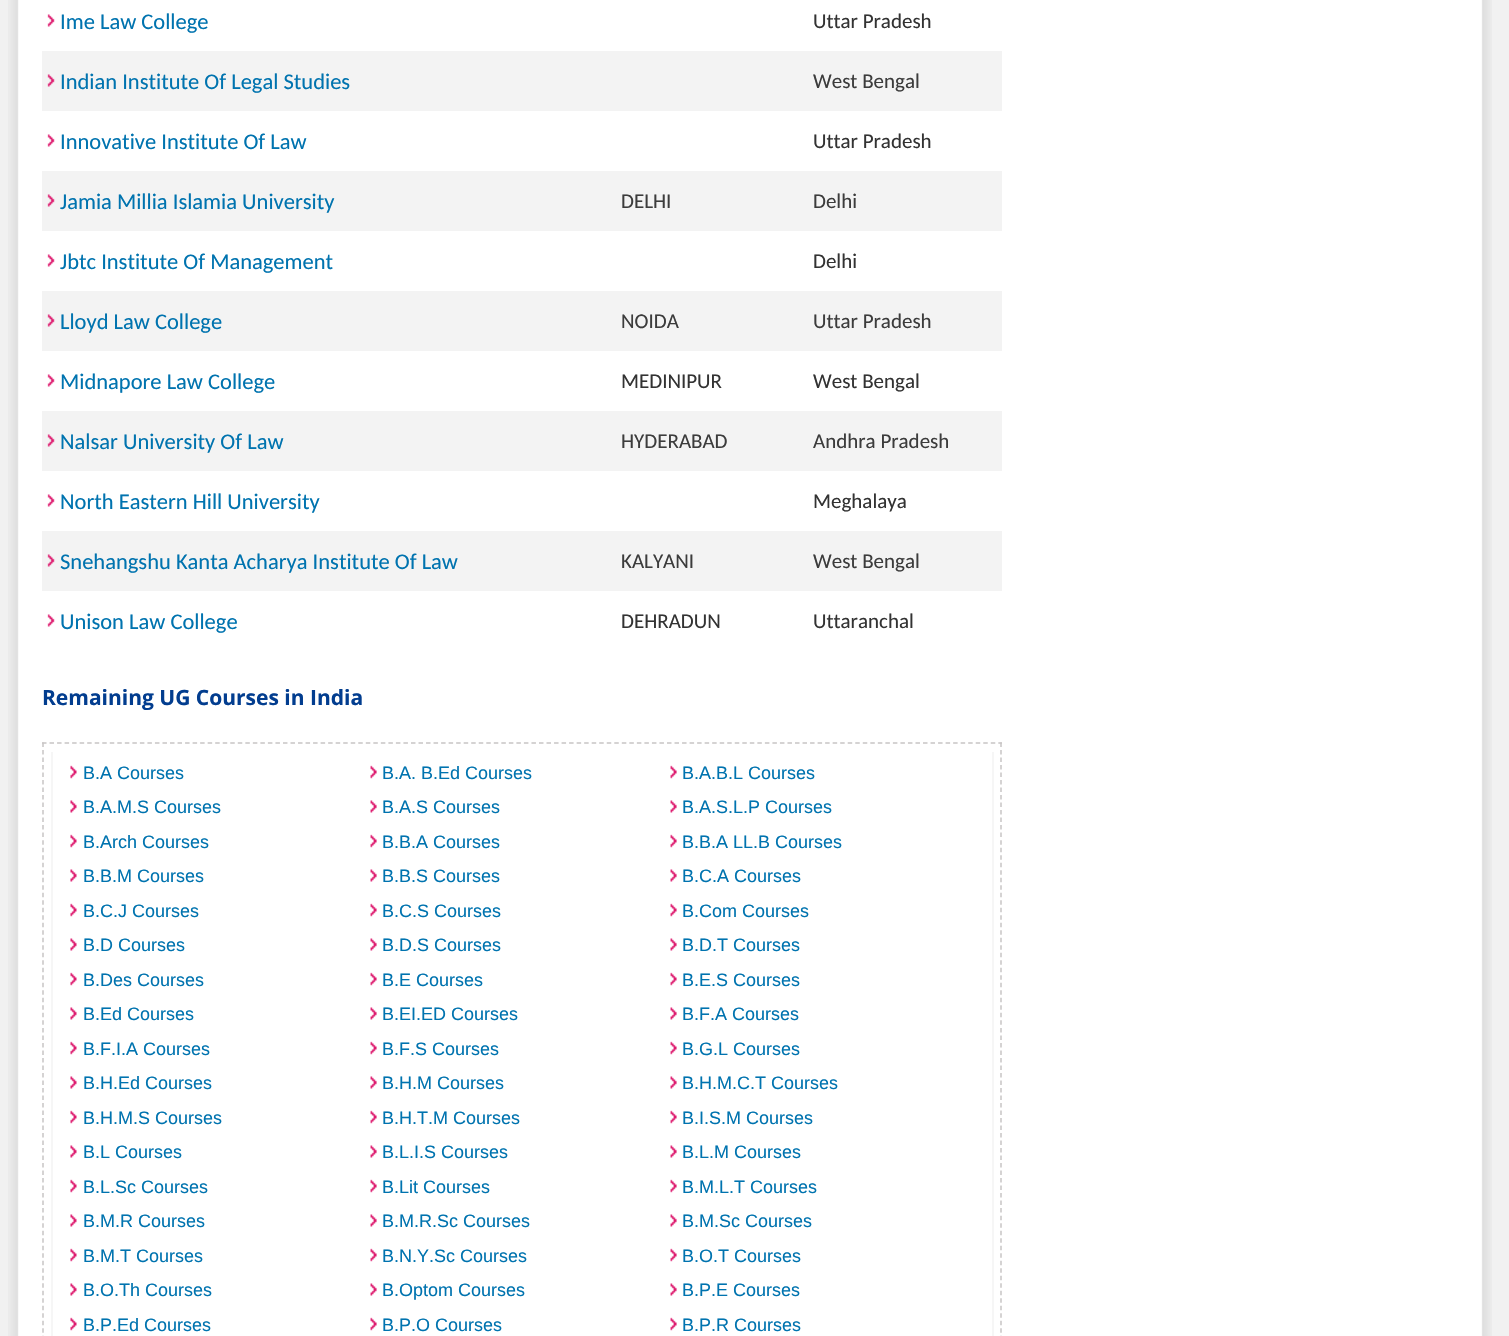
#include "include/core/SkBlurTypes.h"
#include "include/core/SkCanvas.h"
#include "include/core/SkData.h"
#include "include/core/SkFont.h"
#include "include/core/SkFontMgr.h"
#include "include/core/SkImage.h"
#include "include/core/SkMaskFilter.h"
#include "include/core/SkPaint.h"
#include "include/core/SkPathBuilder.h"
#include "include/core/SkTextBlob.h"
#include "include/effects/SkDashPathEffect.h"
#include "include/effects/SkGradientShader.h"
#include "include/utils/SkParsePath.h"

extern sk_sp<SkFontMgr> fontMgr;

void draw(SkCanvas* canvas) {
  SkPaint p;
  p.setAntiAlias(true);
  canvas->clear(SkColorSetRGB(241, 241, 241));
  canvas->drawImageRect(SkImages::DeferredFromEncodedData(SkData::MakeFromFileName("images/1.png")), SkRect::MakeLTRB(8, 0, 1492, 1336), SkSamplingOptions());
  canvas->drawImageRect(SkImages::DeferredFromEncodedData(SkData::MakeFromFileName("images/2.png")), SkRect::MakeLTRB(47, 14, 55, 27), SkSamplingOptions());
  p.setColor(SkColorSetRGB(243, 243, 243));
  canvas->drawRect(SkRect::MakeLTRB(42, 51, 1002, 111), p);
  canvas->drawImageRect(SkImages::DeferredFromEncodedData(SkData::MakeFromFileName("images/3.png")), SkRect::MakeLTRB(47, 74, 55, 87), SkSamplingOptions());
  canvas->drawImageRect(SkImages::DeferredFromEncodedData(SkData::MakeFromFileName("images/2.png")), SkRect::MakeLTRB(47, 134, 55, 147), SkSamplingOptions());
  canvas->drawRect(SkRect::MakeLTRB(42, 171, 1002, 231), p);
  canvas->drawImageRect(SkImages::DeferredFromEncodedData(SkData::MakeFromFileName("images/3.png")), SkRect::MakeLTRB(47, 194, 55, 207), SkSamplingOptions());
  canvas->drawImageRect(SkImages::DeferredFromEncodedData(SkData::MakeFromFileName("images/2.png")), SkRect::MakeLTRB(47, 254, 55, 267), SkSamplingOptions());
  canvas->drawRect(SkRect::MakeLTRB(42, 291, 1002, 351), p);
  canvas->drawImageRect(SkImages::DeferredFromEncodedData(SkData::MakeFromFileName("images/3.png")), SkRect::MakeLTRB(47, 314, 55, 327), SkSamplingOptions());
  canvas->drawImageRect(SkImages::DeferredFromEncodedData(SkData::MakeFromFileName("images/2.png")), SkRect::MakeLTRB(47, 374, 55, 387), SkSamplingOptions());
  canvas->drawRect(SkRect::MakeLTRB(42, 411, 1002, 471), p);
  canvas->drawImageRect(SkImages::DeferredFromEncodedData(SkData::MakeFromFileName("images/3.png")), SkRect::MakeLTRB(47, 434, 55, 447), SkSamplingOptions());
  canvas->drawImageRect(SkImages::DeferredFromEncodedData(SkData::MakeFromFileName("images/2.png")), SkRect::MakeLTRB(47, 494, 55, 507), SkSamplingOptions());
  canvas->drawRect(SkRect::MakeLTRB(42, 531, 1002, 591), p);
  canvas->drawImageRect(SkImages::DeferredFromEncodedData(SkData::MakeFromFileName("images/3.png")), SkRect::MakeLTRB(47, 554, 55, 567), SkSamplingOptions());
  canvas->drawImageRect(SkImages::DeferredFromEncodedData(SkData::MakeFromFileName("images/2.png")), SkRect::MakeLTRB(47, 614, 55, 627), SkSamplingOptions());
  p.setStyle(SkPaint::kStroke_Style);
  p.setStrokeWidth(1.5f);
  p.setColor(SkColorSetRGB(200, 197, 197));
  p.setPathEffect(SkDashPathEffect::Make({{4.5f, 3.03f}}, 0));
  canvas->drawPath(SkPathBuilder().moveTo(42, 743).lineTo(1002, 743).detach(), p);
  p.setPathEffect(nullptr);
  p.setPathEffect(SkDashPathEffect::Make({{4.5f, 3.01f}}, 0));
  canvas->drawPath(SkPathBuilder().moveTo(1001, 742.5f).lineTo(1001, 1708.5f).detach(), p);
  p.setPathEffect(nullptr);
  p.setPathEffect(SkDashPathEffect::Make({{4.5f, 3.01f}}, 0));
  canvas->drawPath(SkPathBuilder().moveTo(43, 742.5f).lineTo(43, 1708.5f).detach(), p);
  p.setPathEffect(nullptr);
  p.setStyle(SkPaint::kFill_Style);
  p.setColor(SkColorSetRGB(246, 246, 246));
  canvas->drawRect(SkRect::MakeLTRB(992, 752, 994, 1336), p);
  canvas->drawRect(SkRect::MakeLTRB(51, 752, 53, 1336), p);
  canvas->drawImageRect(SkImages::DeferredFromEncodedData(SkData::MakeFromFileName("images/4.png")), SkRect::MakeLTRB(70, 765, 77, 779), SkSamplingOptions());
  canvas->drawImageRect(SkImages::DeferredFromEncodedData(SkData::MakeFromFileName("images/5.png")), SkRect::MakeLTRB(370, 765, 377, 779), SkSamplingOptions());
  canvas->drawImageRect(SkImages::DeferredFromEncodedData(SkData::MakeFromFileName("images/5.png")), SkRect::MakeLTRB(670, 765, 677, 779), SkSamplingOptions());
  canvas->drawImageRect(SkImages::DeferredFromEncodedData(SkData::MakeFromFileName("images/6.png")), SkRect::MakeLTRB(70, 800, 77, 813), SkSamplingOptions());
  canvas->drawImageRect(SkImages::DeferredFromEncodedData(SkData::MakeFromFileName("images/7.png")), SkRect::MakeLTRB(370, 800, 377, 813), SkSamplingOptions());
  canvas->drawImageRect(SkImages::DeferredFromEncodedData(SkData::MakeFromFileName("images/7.png")), SkRect::MakeLTRB(670, 800, 677, 813), SkSamplingOptions());
  canvas->drawImageRect(SkImages::DeferredFromEncodedData(SkData::MakeFromFileName("images/4.png")), SkRect::MakeLTRB(70, 834, 77, 848), SkSamplingOptions());
  canvas->drawImageRect(SkImages::DeferredFromEncodedData(SkData::MakeFromFileName("images/5.png")), SkRect::MakeLTRB(370, 834, 377, 848), SkSamplingOptions());
  canvas->drawImageRect(SkImages::DeferredFromEncodedData(SkData::MakeFromFileName("images/5.png")), SkRect::MakeLTRB(670, 834, 677, 848), SkSamplingOptions());
  canvas->drawImageRect(SkImages::DeferredFromEncodedData(SkData::MakeFromFileName("images/6.png")), SkRect::MakeLTRB(70, 869, 77, 882), SkSamplingOptions());
  canvas->drawImageRect(SkImages::DeferredFromEncodedData(SkData::MakeFromFileName("images/7.png")), SkRect::MakeLTRB(370, 869, 377, 882), SkSamplingOptions());
  canvas->drawImageRect(SkImages::DeferredFromEncodedData(SkData::MakeFromFileName("images/7.png")), SkRect::MakeLTRB(670, 869, 677, 882), SkSamplingOptions());
  canvas->drawImageRect(SkImages::DeferredFromEncodedData(SkData::MakeFromFileName("images/4.png")), SkRect::MakeLTRB(70, 903, 77, 917), SkSamplingOptions());
  canvas->drawImageRect(SkImages::DeferredFromEncodedData(SkData::MakeFromFileName("images/5.png")), SkRect::MakeLTRB(370, 903, 377, 917), SkSamplingOptions());
  canvas->drawImageRect(SkImages::DeferredFromEncodedData(SkData::MakeFromFileName("images/5.png")), SkRect::MakeLTRB(670, 903, 677, 917), SkSamplingOptions());
  canvas->drawImageRect(SkImages::DeferredFromEncodedData(SkData::MakeFromFileName("images/6.png")), SkRect::MakeLTRB(70, 938, 77, 951), SkSamplingOptions());
  canvas->drawImageRect(SkImages::DeferredFromEncodedData(SkData::MakeFromFileName("images/7.png")), SkRect::MakeLTRB(370, 938, 377, 951), SkSamplingOptions());
  canvas->drawImageRect(SkImages::DeferredFromEncodedData(SkData::MakeFromFileName("images/7.png")), SkRect::MakeLTRB(670, 938, 677, 951), SkSamplingOptions());
  canvas->drawImageRect(SkImages::DeferredFromEncodedData(SkData::MakeFromFileName("images/4.png")), SkRect::MakeLTRB(70, 972, 77, 986), SkSamplingOptions());
  canvas->drawImageRect(SkImages::DeferredFromEncodedData(SkData::MakeFromFileName("images/5.png")), SkRect::MakeLTRB(370, 972, 377, 986), SkSamplingOptions());
  canvas->drawImageRect(SkImages::DeferredFromEncodedData(SkData::MakeFromFileName("images/5.png")), SkRect::MakeLTRB(670, 972, 677, 986), SkSamplingOptions());
  canvas->drawImageRect(SkImages::DeferredFromEncodedData(SkData::MakeFromFileName("images/6.png")), SkRect::MakeLTRB(70, 1007, 77, 1020), SkSamplingOptions());
  canvas->drawImageRect(SkImages::DeferredFromEncodedData(SkData::MakeFromFileName("images/7.png")), SkRect::MakeLTRB(370, 1007, 377, 1020), SkSamplingOptions());
  canvas->drawImageRect(SkImages::DeferredFromEncodedData(SkData::MakeFromFileName("images/7.png")), SkRect::MakeLTRB(670, 1007, 677, 1020), SkSamplingOptions());
  canvas->drawImageRect(SkImages::DeferredFromEncodedData(SkData::MakeFromFileName("images/4.png")), SkRect::MakeLTRB(70, 1041, 77, 1055), SkSamplingOptions());
  canvas->drawImageRect(SkImages::DeferredFromEncodedData(SkData::MakeFromFileName("images/5.png")), SkRect::MakeLTRB(370, 1041, 377, 1055), SkSamplingOptions());
  canvas->drawImageRect(SkImages::DeferredFromEncodedData(SkData::MakeFromFileName("images/5.png")), SkRect::MakeLTRB(670, 1041, 677, 1055), SkSamplingOptions());
  canvas->drawImageRect(SkImages::DeferredFromEncodedData(SkData::MakeFromFileName("images/6.png")), SkRect::MakeLTRB(70, 1076, 77, 1089), SkSamplingOptions());
  canvas->drawImageRect(SkImages::DeferredFromEncodedData(SkData::MakeFromFileName("images/7.png")), SkRect::MakeLTRB(370, 1076, 377, 1089), SkSamplingOptions());
  canvas->drawImageRect(SkImages::DeferredFromEncodedData(SkData::MakeFromFileName("images/7.png")), SkRect::MakeLTRB(670, 1076, 677, 1089), SkSamplingOptions());
  canvas->drawImageRect(SkImages::DeferredFromEncodedData(SkData::MakeFromFileName("images/4.png")), SkRect::MakeLTRB(70, 1110, 77, 1124), SkSamplingOptions());
  canvas->drawImageRect(SkImages::DeferredFromEncodedData(SkData::MakeFromFileName("images/5.png")), SkRect::MakeLTRB(370, 1110, 377, 1124), SkSamplingOptions());
  canvas->drawImageRect(SkImages::DeferredFromEncodedData(SkData::MakeFromFileName("images/5.png")), SkRect::MakeLTRB(670, 1110, 677, 1124), SkSamplingOptions());
  canvas->drawImageRect(SkImages::DeferredFromEncodedData(SkData::MakeFromFileName("images/6.png")), SkRect::MakeLTRB(70, 1145, 77, 1158), SkSamplingOptions());
  canvas->drawImageRect(SkImages::DeferredFromEncodedData(SkData::MakeFromFileName("images/7.png")), SkRect::MakeLTRB(370, 1145, 377, 1158), SkSamplingOptions());
  canvas->drawImageRect(SkImages::DeferredFromEncodedData(SkData::MakeFromFileName("images/7.png")), SkRect::MakeLTRB(670, 1145, 677, 1158), SkSamplingOptions());
  canvas->drawImageRect(SkImages::DeferredFromEncodedData(SkData::MakeFromFileName("images/4.png")), SkRect::MakeLTRB(70, 1179, 77, 1193), SkSamplingOptions());
  canvas->drawImageRect(SkImages::DeferredFromEncodedData(SkData::MakeFromFileName("images/5.png")), SkRect::MakeLTRB(370, 1179, 377, 1193), SkSamplingOptions());
  canvas->drawImageRect(SkImages::DeferredFromEncodedData(SkData::MakeFromFileName("images/5.png")), SkRect::MakeLTRB(670, 1179, 677, 1193), SkSamplingOptions());
  canvas->drawImageRect(SkImages::DeferredFromEncodedData(SkData::MakeFromFileName("images/6.png")), SkRect::MakeLTRB(70, 1214, 77, 1227), SkSamplingOptions());
  canvas->drawImageRect(SkImages::DeferredFromEncodedData(SkData::MakeFromFileName("images/7.png")), SkRect::MakeLTRB(370, 1214, 377, 1227), SkSamplingOptions());
  canvas->drawImageRect(SkImages::DeferredFromEncodedData(SkData::MakeFromFileName("images/7.png")), SkRect::MakeLTRB(670, 1214, 677, 1227), SkSamplingOptions());
  canvas->drawImageRect(SkImages::DeferredFromEncodedData(SkData::MakeFromFileName("images/4.png")), SkRect::MakeLTRB(70, 1248, 77, 1262), SkSamplingOptions());
  canvas->drawImageRect(SkImages::DeferredFromEncodedData(SkData::MakeFromFileName("images/5.png")), SkRect::MakeLTRB(370, 1248, 377, 1262), SkSamplingOptions());
  canvas->drawImageRect(SkImages::DeferredFromEncodedData(SkData::MakeFromFileName("images/5.png")), SkRect::MakeLTRB(670, 1248, 677, 1262), SkSamplingOptions());
  canvas->drawImageRect(SkImages::DeferredFromEncodedData(SkData::MakeFromFileName("images/6.png")), SkRect::MakeLTRB(70, 1283, 77, 1296), SkSamplingOptions());
  canvas->drawImageRect(SkImages::DeferredFromEncodedData(SkData::MakeFromFileName("images/7.png")), SkRect::MakeLTRB(370, 1283, 377, 1296), SkSamplingOptions());
  canvas->drawImageRect(SkImages::DeferredFromEncodedData(SkData::MakeFromFileName("images/7.png")), SkRect::MakeLTRB(670, 1283, 677, 1296), SkSamplingOptions());
  canvas->drawImageRect(SkImages::DeferredFromEncodedData(SkData::MakeFromFileName("images/4.png")), SkRect::MakeLTRB(70, 1317, 77, 1331), SkSamplingOptions());
  canvas->drawImageRect(SkImages::DeferredFromEncodedData(SkData::MakeFromFileName("images/5.png")), SkRect::MakeLTRB(370, 1317, 377, 1331), SkSamplingOptions());
  canvas->drawImageRect(SkImages::DeferredFromEncodedData(SkData::MakeFromFileName("images/5.png")), SkRect::MakeLTRB(670, 1317, 677, 1331), SkSamplingOptions());
  SkFont font1(fontMgr->matchFamilyStyle("Carlito", SkFontStyle::Normal()), 22.5f);
  font1.setSubpixel(true);
  p.setColor(SkColorSetRGB(0, 115, 175));
  canvas->drawString("Ime Law College", 60, 29, font1, p);
  SkFont font2(fontMgr->matchFamilyStyle("Carlito", SkFontStyle::Normal()), 21);
  font2.setSubpixel(true);
  p.setColor(SkColorSetRGB(51, 51, 51));
  canvas->drawString("Uttar Pradesh", 813, 28, font2, p);
  p.setColor(SkColorSetRGB(0, 115, 175));
  canvas->drawString("Indian Institute Of Legal Studies", 60, 89, font1, p);
  p.setColor(SkColorSetRGB(60, 60, 60));
  canvas->drawString("West Bengal", 813, 88, font2, p);
  p.setColor(SkColorSetRGB(0, 115, 175));
  canvas->drawString("Innovative Institute Of Law", 60, 149, font1, p);
  p.setColor(SkColorSetRGB(51, 51, 51));
  canvas->drawString("Uttar Pradesh", 813, 148, font2, p);
  p.setColor(SkColorSetRGB(0, 115, 175));
  canvas->drawString("Jamia Millia Islamia University", 60, 209, font1, p);
  p.setColor(SkColorSetRGB(60, 60, 60));
  canvas->drawString("DELHI", 621, 208, font2, p);
  canvas->drawString("Delhi", 813, 208, font2, p);
  p.setColor(SkColorSetRGB(0, 115, 175));
  canvas->drawString("Jbtc Institute Of Management", 60, 269, font1, p);
  p.setColor(SkColorSetRGB(51, 51, 51));
  canvas->drawString("Delhi", 813, 268, font2, p);
  p.setColor(SkColorSetRGB(0, 115, 175));
  canvas->drawString("Lloyd Law College", 60, 329, font1, p);
  p.setColor(SkColorSetRGB(60, 60, 60));
  canvas->drawString("NOIDA", 621, 328, font2, p);
  canvas->drawString("Uttar Pradesh", 813, 328, font2, p);
  p.setColor(SkColorSetRGB(0, 115, 175));
  canvas->drawString("Midnapore Law College", 60, 389, font1, p);
  p.setColor(SkColorSetRGB(51, 51, 51));
  canvas->drawString("MEDINIPUR", 621, 388, font2, p);
  canvas->drawString("West Bengal", 813, 388, font2, p);
  p.setColor(SkColorSetRGB(0, 115, 175));
  canvas->drawString("Nalsar University Of Law", 60, 449, font1, p);
  p.setColor(SkColorSetRGB(60, 60, 60));
  canvas->drawString("HYDERABAD", 621, 448, font2, p);
  canvas->drawString("Andhra Pradesh", 813, 448, font2, p);
  p.setColor(SkColorSetRGB(0, 115, 175));
  canvas->drawString("North Eastern Hill University", 60, 509, font1, p);
  p.setColor(SkColorSetRGB(51, 51, 51));
  canvas->drawString("Meghalaya", 813, 508, font2, p);
  p.setColor(SkColorSetRGB(0, 115, 175));
  canvas->drawString("Snehangshu Kanta Acharya Institute Of Law", 60, 569, font1, p);
  p.setColor(SkColorSetRGB(60, 60, 60));
  canvas->drawString("KALYANI", 621, 568, font2, p);
  canvas->drawString("West Bengal", 813, 568, font2, p);
  p.setColor(SkColorSetRGB(0, 115, 175));
  canvas->drawString("Unison Law College", 60, 629, font1, p);
  p.setColor(SkColorSetRGB(51, 51, 51));
  canvas->drawString("DEHRADUN", 621, 628, font2, p);
  canvas->drawString("Uttaranchal", 813, 628, font2, p);
  SkFont font3(fontMgr->matchFamilyStyle("Open Sans", SkFontStyle::Bold()), 21);
  font3.setSubpixel(true);
  p.setColor(SkColorSetRGB(2, 61, 143));
  canvas->drawString("Remaining UG Courses in India", 42, 705, font3, p);
  SkFont font4(fontMgr->matchFamilyStyle("Liberation Sans", SkFontStyle::Normal()), 18);
  font4.setSubpixel(true);
  p.setColor(SkColorSetRGB(0, 115, 175));
  canvas->drawString("B.A Courses", 83, 779, font4, p);
  canvas->drawString("B.A. B.Ed Courses", 382, 779, font4, p);
  canvas->drawString("B.A.B.L Courses", 682, 779, font4, p);
  canvas->drawString("B.A.M.S Courses", 83, 813, font4, p);
  canvas->drawString("B.A.S Courses", 382, 813, font4, p);
  canvas->drawString("B.A.S.L.P Courses", 682, 813, font4, p);
  canvas->drawString("B.Arch Courses", 83, 848, font4, p);
  canvas->drawString("B.B.A Courses", 382, 848, font4, p);
  canvas->drawString("B.B.A LL.B Courses", 682, 848, font4, p);
  canvas->drawString("B.B.M Courses", 83, 882, font4, p);
  canvas->drawString("B.B.S Courses", 382, 882, font4, p);
  canvas->drawString("B.C.A Courses", 682, 882, font4, p);
  canvas->drawString("B.C.J Courses", 83, 917, font4, p);
  canvas->drawString("B.C.S Courses", 382, 917, font4, p);
  canvas->drawString("B.Com Courses", 682, 917, font4, p);
  canvas->drawString("B.D Courses", 83, 951, font4, p);
  canvas->drawString("B.D.S Courses", 382, 951, font4, p);
  canvas->drawString("B.D.T Courses", 682, 951, font4, p);
  canvas->drawString("B.Des Courses", 83, 986, font4, p);
  canvas->drawString("B.E Courses", 382, 986, font4, p);
  canvas->drawString("B.E.S Courses", 682, 986, font4, p);
  canvas->drawString("B.Ed Courses", 83, 1020, font4, p);
  canvas->drawString("B.EI.ED Courses", 382, 1020, font4, p);
  canvas->drawString("B.F.A Courses", 682, 1020, font4, p);
  canvas->drawString("B.F.I.A Courses", 83, 1055, font4, p);
  canvas->drawString("B.F.S Courses", 382, 1055, font4, p);
  canvas->drawString("B.G.L Courses", 682, 1055, font4, p);
  canvas->drawString("B.H.Ed Courses", 83, 1089, font4, p);
  canvas->drawString("B.H.M Courses", 382, 1089, font4, p);
  canvas->drawString("B.H.M.C.T Courses", 682, 1089, font4, p);
  canvas->drawString("B.H.M.S Courses", 83, 1124, font4, p);
  canvas->drawString("B.H.T.M Courses", 382, 1124, font4, p);
  canvas->drawString("B.I.S.M Courses", 682, 1124, font4, p);
  canvas->drawString("B.L Courses", 83, 1158, font4, p);
  canvas->drawString("B.L.I.S Courses", 382, 1158, font4, p);
  canvas->drawString("B.L.M Courses", 682, 1158, font4, p);
  canvas->drawString("B.L.Sc Courses", 83, 1193, font4, p);
  canvas->drawString("B.Lit Courses", 382, 1193, font4, p);
  canvas->drawString("B.M.L.T Courses", 682, 1193, font4, p);
  canvas->drawString("B.M.R Courses", 83, 1227, font4, p);
  canvas->drawString("B.M.R.Sc Courses", 382, 1227, font4, p);
  canvas->drawString("B.M.Sc Courses", 682, 1227, font4, p);
  canvas->drawString("B.M.T Courses", 83, 1262, font4, p);
  canvas->drawString("B.N.Y.Sc Courses", 382, 1262, font4, p);
  canvas->drawString("B.O.T Courses", 682, 1262, font4, p);
  canvas->drawString("B.O.Th Courses", 83, 1296, font4, p);
  canvas->drawString("B.Optom Courses", 382, 1296, font4, p);
  canvas->drawString("B.P.E Courses", 682, 1296, font4, p);
  canvas->drawString("B.P.Ed Courses", 83, 1331, font4, p);
  canvas->drawString("B.P.O Courses", 382, 1331, font4, p);
  canvas->drawString("B.P.R Courses", 682, 1331, font4, p);
}
